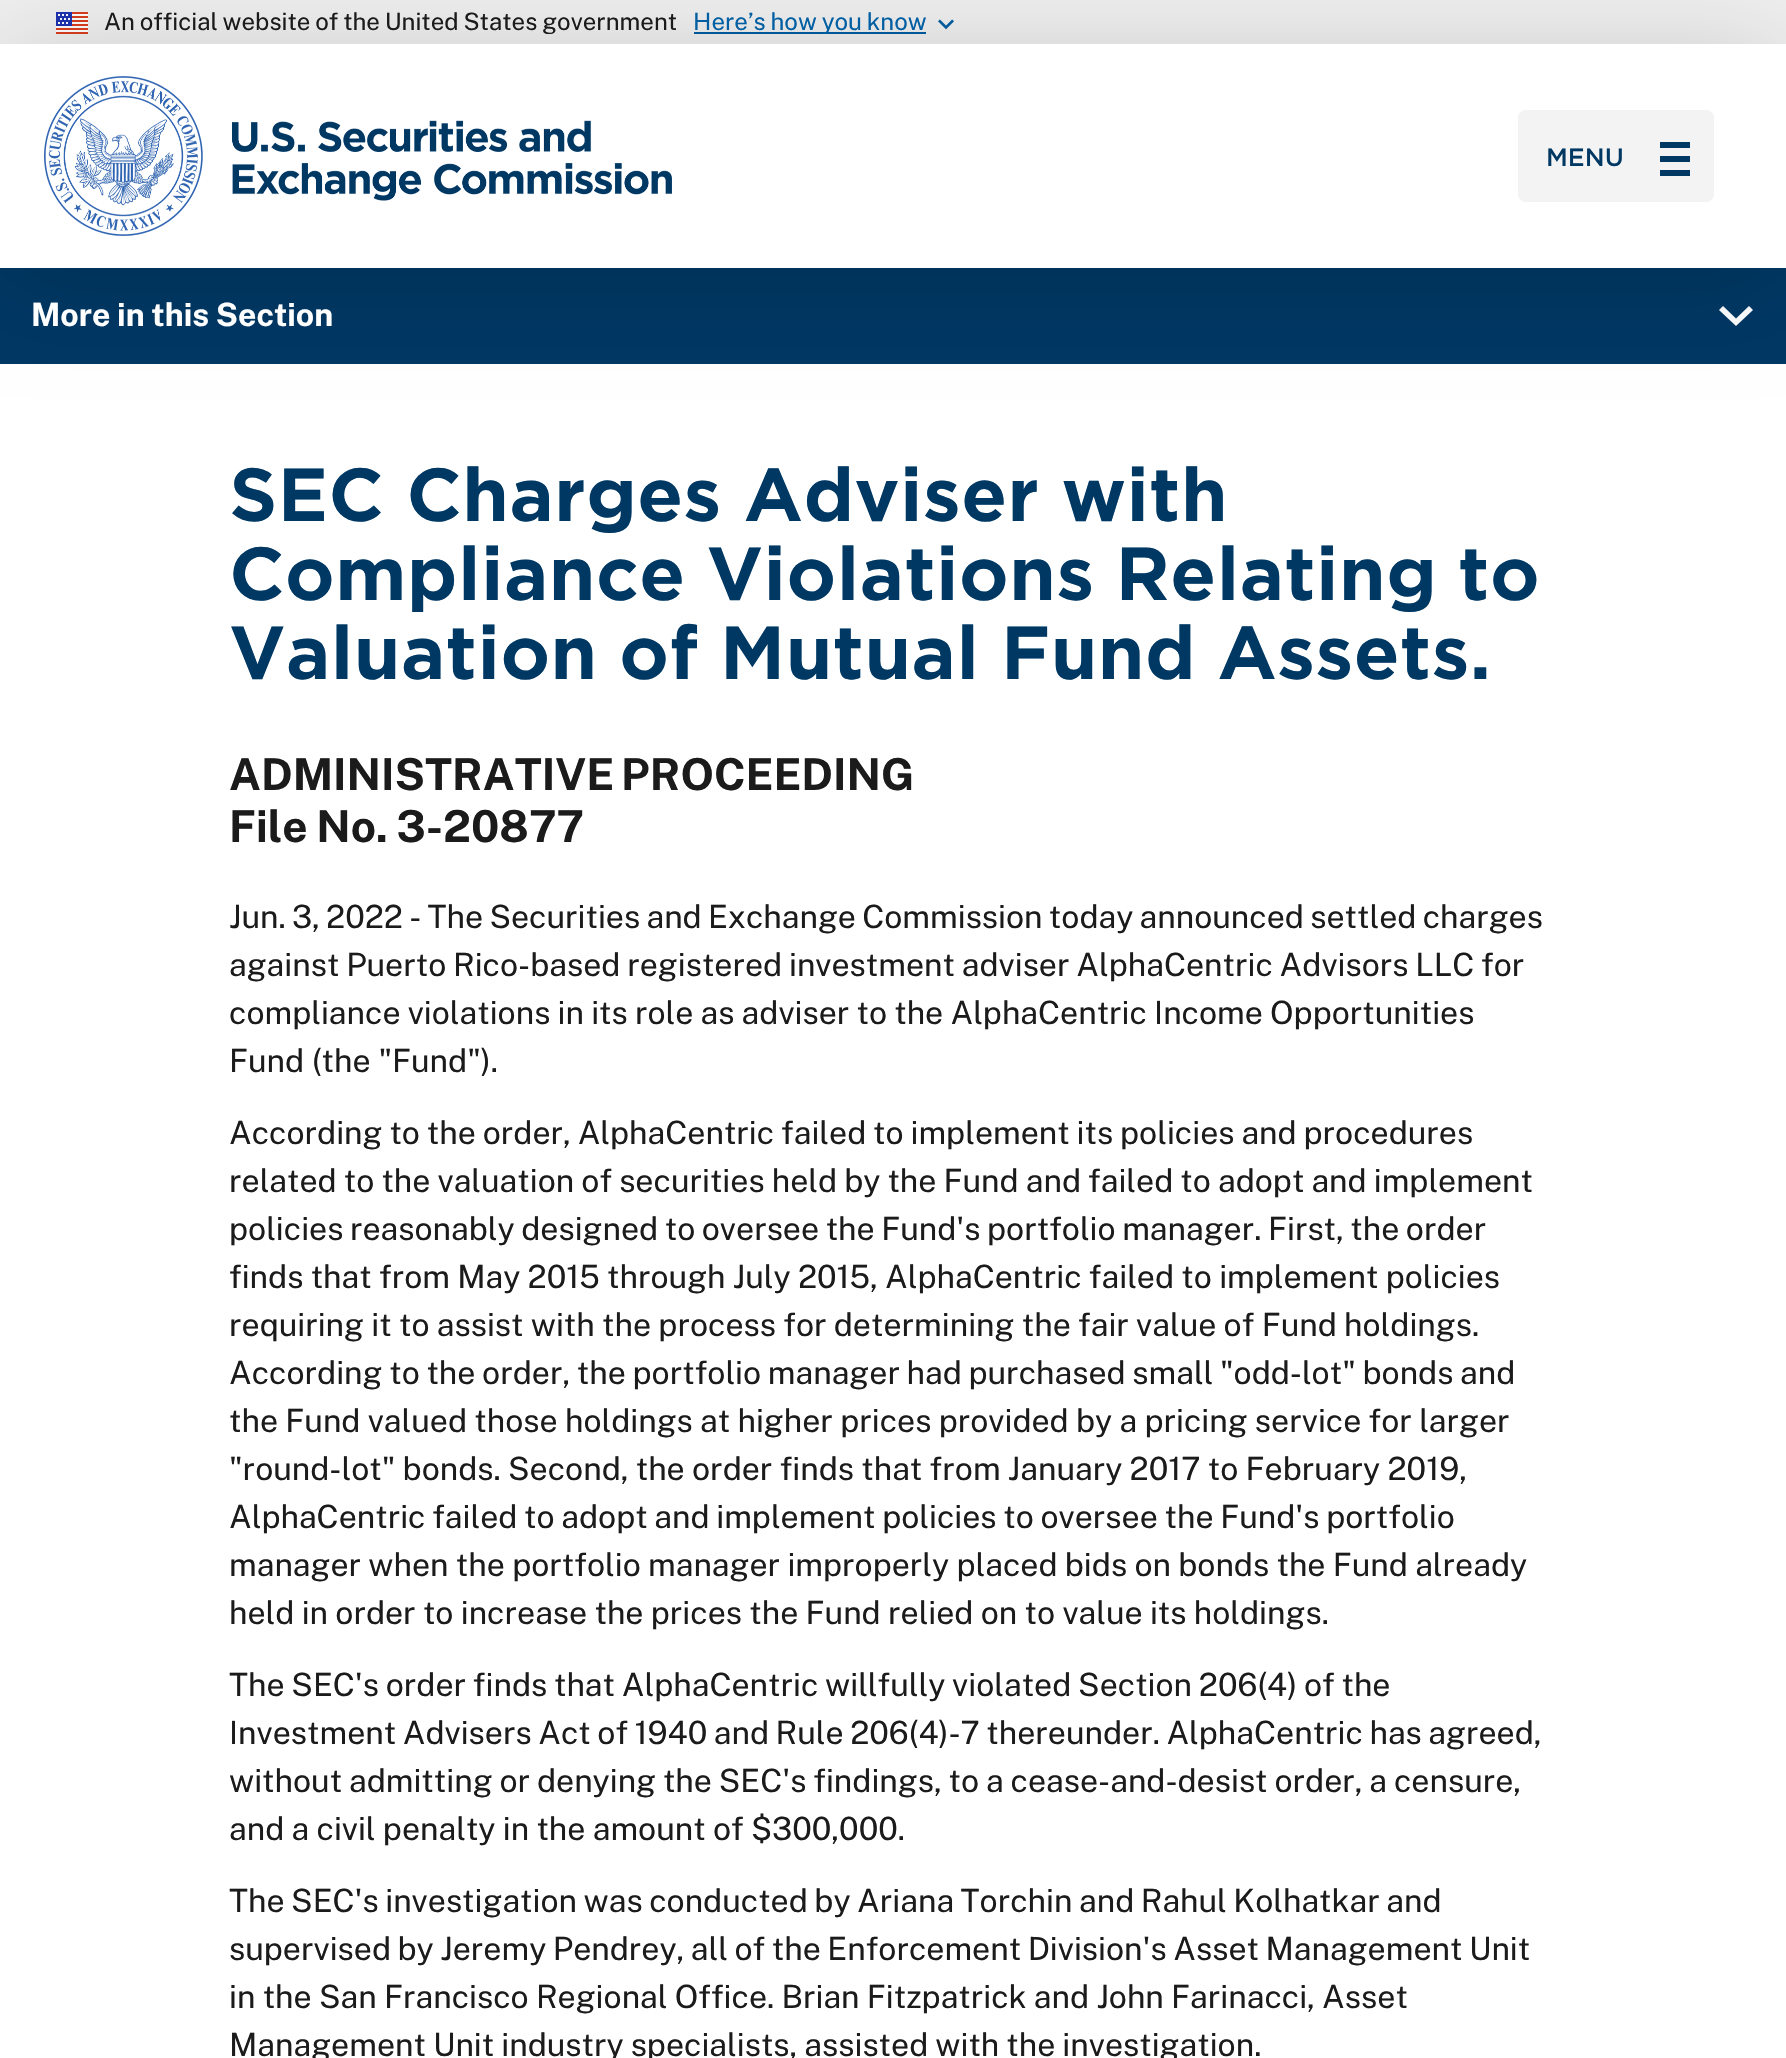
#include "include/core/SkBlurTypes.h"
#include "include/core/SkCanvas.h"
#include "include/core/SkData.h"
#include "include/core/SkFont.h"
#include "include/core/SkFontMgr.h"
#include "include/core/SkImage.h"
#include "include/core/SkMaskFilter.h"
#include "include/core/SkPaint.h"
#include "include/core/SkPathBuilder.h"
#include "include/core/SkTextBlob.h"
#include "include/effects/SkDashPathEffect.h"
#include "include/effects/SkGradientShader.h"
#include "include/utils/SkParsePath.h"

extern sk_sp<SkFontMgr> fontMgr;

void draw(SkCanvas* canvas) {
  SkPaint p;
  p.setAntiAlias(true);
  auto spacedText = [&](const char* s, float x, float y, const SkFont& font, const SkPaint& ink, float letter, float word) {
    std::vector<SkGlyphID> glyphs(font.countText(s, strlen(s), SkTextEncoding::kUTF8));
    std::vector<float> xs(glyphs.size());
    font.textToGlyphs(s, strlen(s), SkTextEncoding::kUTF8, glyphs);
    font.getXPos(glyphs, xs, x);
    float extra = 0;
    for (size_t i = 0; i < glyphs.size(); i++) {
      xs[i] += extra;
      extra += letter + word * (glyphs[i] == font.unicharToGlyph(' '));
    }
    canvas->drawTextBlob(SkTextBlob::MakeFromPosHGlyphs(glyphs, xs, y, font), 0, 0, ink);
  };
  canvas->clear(SkColorSetRGB(240, 240, 240));
  canvas->drawImageRect(SkImages::DeferredFromEncodedData(SkData::MakeFromFileName("images/1.png")), SkRect::MakeLTRB(56, 12, 88, 34), SkSamplingOptions());
  p.setColor(SkColorSetRGB(0, 94, 162));
  canvas->drawRect(SkRect::MakeLTRB(694, 32, 926, 34), p);
  canvas->drawImageRect(SkImages::DeferredFromEncodedData(SkData::MakeFromFileName("images/2.png")), SkRect::MakeLTRB(938, 19, 954, 30), SkSamplingOptions());
  p.setColor(SK_ColorWHITE);
  canvas->drawRect(SkRect::MakeLTRB(0, 364, 1786, 2058), p);
  p.setColor(SkColorSetRGB(0, 56, 100));
  canvas->drawRect(SkRect::MakeLTRB(0, 268, 1786, 364), p);
  p.setColor(SK_ColorWHITE);
  canvas->drawPath(SkPathBuilder().moveTo(1749, 306).lineTo(1736, 318.5f).lineTo(1723, 306).lineTo(1719, 310).lineTo(1736, 326).lineTo(1753, 310).close().detach(), p);
  p.setColor(SkColorSetARGB(41, 0, 0, 0));
  p.setMaskFilter(SkMaskFilter::MakeBlur(kNormal_SkBlurStyle, 52));
  canvas->drawRect(SkRect::MakeLTRB(0, 52, 1786, 276), p);
  p.setMaskFilter(nullptr);
  p.setColor(SK_ColorWHITE);
  canvas->drawRect(SkRect::MakeLTRB(0, 44, 1786, 268), p);
  canvas->drawImageRect(SkImages::DeferredFromEncodedData(SkData::MakeFromFileName("images/3.png")), SkRect::MakeLTRB(44, 76, 672, 236), SkSamplingOptions());
  p.setColor(SkColorSetRGB(243, 243, 243));
  canvas->drawRoundRect(SkRect::MakeLTRB(1518, 110, 1714, 202), 8, 8, p);
  p.setColor(SkColorSetRGB(0, 56, 100));
  canvas->drawRect(SkRect::MakeLTRB(1660, 156, 1690, 162), p);
  canvas->drawRect(SkRect::MakeLTRB(1660, 142, 1690, 148), p);
  canvas->drawRect(SkRect::MakeLTRB(1660, 170, 1690, 176), p);
  SkFont font1(fontMgr->matchFamilyStyle("Public Sans", SkFontStyle::Normal()), 24);
  font1.setSubpixel(true);
  p.setColor(SkColorSetRGB(27, 27, 27));
  spacedText("An official website of the United States government", 104, 30, font1, p, 0, -1);
  p.setColor(SkColorSetRGB(0, 94, 162));
  spacedText("Here’s how you know", 693, 30, font1, p, 0, -1);
  SkFont font2(fontMgr->matchFamilyStyle("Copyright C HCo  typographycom", SkFontStyle(300, SkFontStyle::kNormal_Width, SkFontStyle::kUpright_Slant)), 24);
  font2.setSubpixel(true);
  p.setColor(SkColorSetRGB(0, 56, 100));
  canvas->drawString("MENU", 1546, 166, font2, p);
  SkFont font3(fontMgr->matchFamilyStyle("Public Sans", SkFontStyle::Bold()), 32);
  font3.setSubpixel(true);
  p.setColor(SK_ColorWHITE);
  spacedText("More in this Section", 31, 326, font3, p, 0, -0.5f);
  SkFont font4(fontMgr->matchFamilyStyle("Copyright C HCo  typographycom", SkFontStyle::Normal()), 72);
  font4.setSubpixel(true);
  p.setColor(SkColorSetRGB(0, 56, 100));
  spacedText("SEC Charges Adviser with", 229, 521, font4, p, 0, -1);
  spacedText("Compliance Violations Relating to", 229, 600, font4, p, 0, -2);
  spacedText("Valuation of Mutual Fund Assets.", 229, 679, font4, p, 0, -1.5f);
  SkFont font5(fontMgr->matchFamilyStyle("Public Sans", SkFontStyle::Bold()), 44);
  font5.setSubpixel(true);
  p.setColor(SkColorSetRGB(27, 27, 27));
  spacedText("ADMINISTRATIVE PROCEEDING", 229, 790, font5, p, 0, -3);
  spacedText("File No. 3-20877", 229, 842, font5, p, 0, -1.25f);
  SkFont font6(fontMgr->matchFamilyStyle("Public Sans", SkFontStyle::Normal()), 32);
  font6.setSubpixel(true);
  spacedText("Jun. 3, 2022 - The Securities and Exchange Commission today announced settled charges", 229, 928, font6, p, 0, -1.5f);
  spacedText("against Puerto Rico-based registered investment adviser AlphaCentric Advisors LLC for", 229, 976, font6, p, 0, -1);
  spacedText("compliance violations in its role as adviser to the AlphaCentric Income Opportunities", 229, 1024, font6, p, 0, -0.6f);
  canvas->drawString("Fund (the \"Fund\").", 229, 1072, font6, p);
  spacedText("According to the order, AlphaCentric failed to implement its policies and procedures", 229, 1144, font6, p, 0, -0.9f);
  spacedText("related to the valuation of securities held by the Fund and failed to adopt and implement", 229, 1192, font6, p, 0, -0.7f);
  spacedText("policies reasonably designed to oversee the Fund's portfolio manager. First, the order", 229, 1240, font6, p, 0, -1.25f);
  spacedText("finds that from May 2015 through July 2015, AlphaCentric failed to implement policies", 229, 1288, font6, p, 0, -0.5f);
  spacedText("requiring it to assist with the process for determining the fair value of Fund holdings.", 229, 1336, font6, p, 0, -0.5f);
  spacedText("According to the order, the portfolio manager had purchased small \"odd-lot\" bonds and", 229, 1384, font6, p, 0, -1.1f);
  spacedText("the Fund valued those holdings at higher prices provided by a pricing service for larger", 229, 1432, font6, p, 0, -0.5f);
  spacedText("\"round-lot\" bonds. Second, the order finds that from January 2017 to February 2019,", 229, 1480, font6, p, 0, -0.5f);
  spacedText("AlphaCentric failed to adopt and implement policies to oversee the Fund's portfolio", 229, 1528, font6, p, 0, -1.1f);
  spacedText("manager when the portfolio manager improperly placed bids on bonds the Fund already", 229, 1576, font6, p, 0, -0.5f);
  spacedText("held in order to increase the prices the Fund relied on to value its holdings.", 229, 1624, font6, p, 0, -0.5f);
  spacedText("The SEC's order finds that AlphaCentric willfully violated Section 206(4) of the", 229, 1696, font6, p, 0, -1);
  spacedText("Investment Advisers Act of 1940 and Rule 206(4)-7 thereunder. AlphaCentric has agreed,", 229, 1744, font6, p, 0, -1.25f);
  spacedText("without admitting or denying the SEC's findings, to a cease-and-desist order, a censure,", 229, 1792, font6, p, 0, -0.9f);
  spacedText("and a civil penalty in the amount of $300,000.", 229, 1840, font6, p, 0, -0.5f);
  spacedText("The SEC's investigation was conducted by Ariana Torchin and Rahul Kolhatkar and", 229, 1912, font6, p, 0, -1.25f);
  spacedText("supervised by Jeremy Pendrey, all of the Enforcement Division's Asset Management Unit", 229, 1960, font6, p, 0, -1.25f);
  spacedText("in the San Francisco Regional Office. Brian Fitzpatrick and John Farinacci, Asset", 229, 2008, font6, p, 0, -0.5f);
  spacedText("Management Unit industry specialists, assisted with the investigation.", 229, 2056, font6, p, 0, -0.75f);
}
